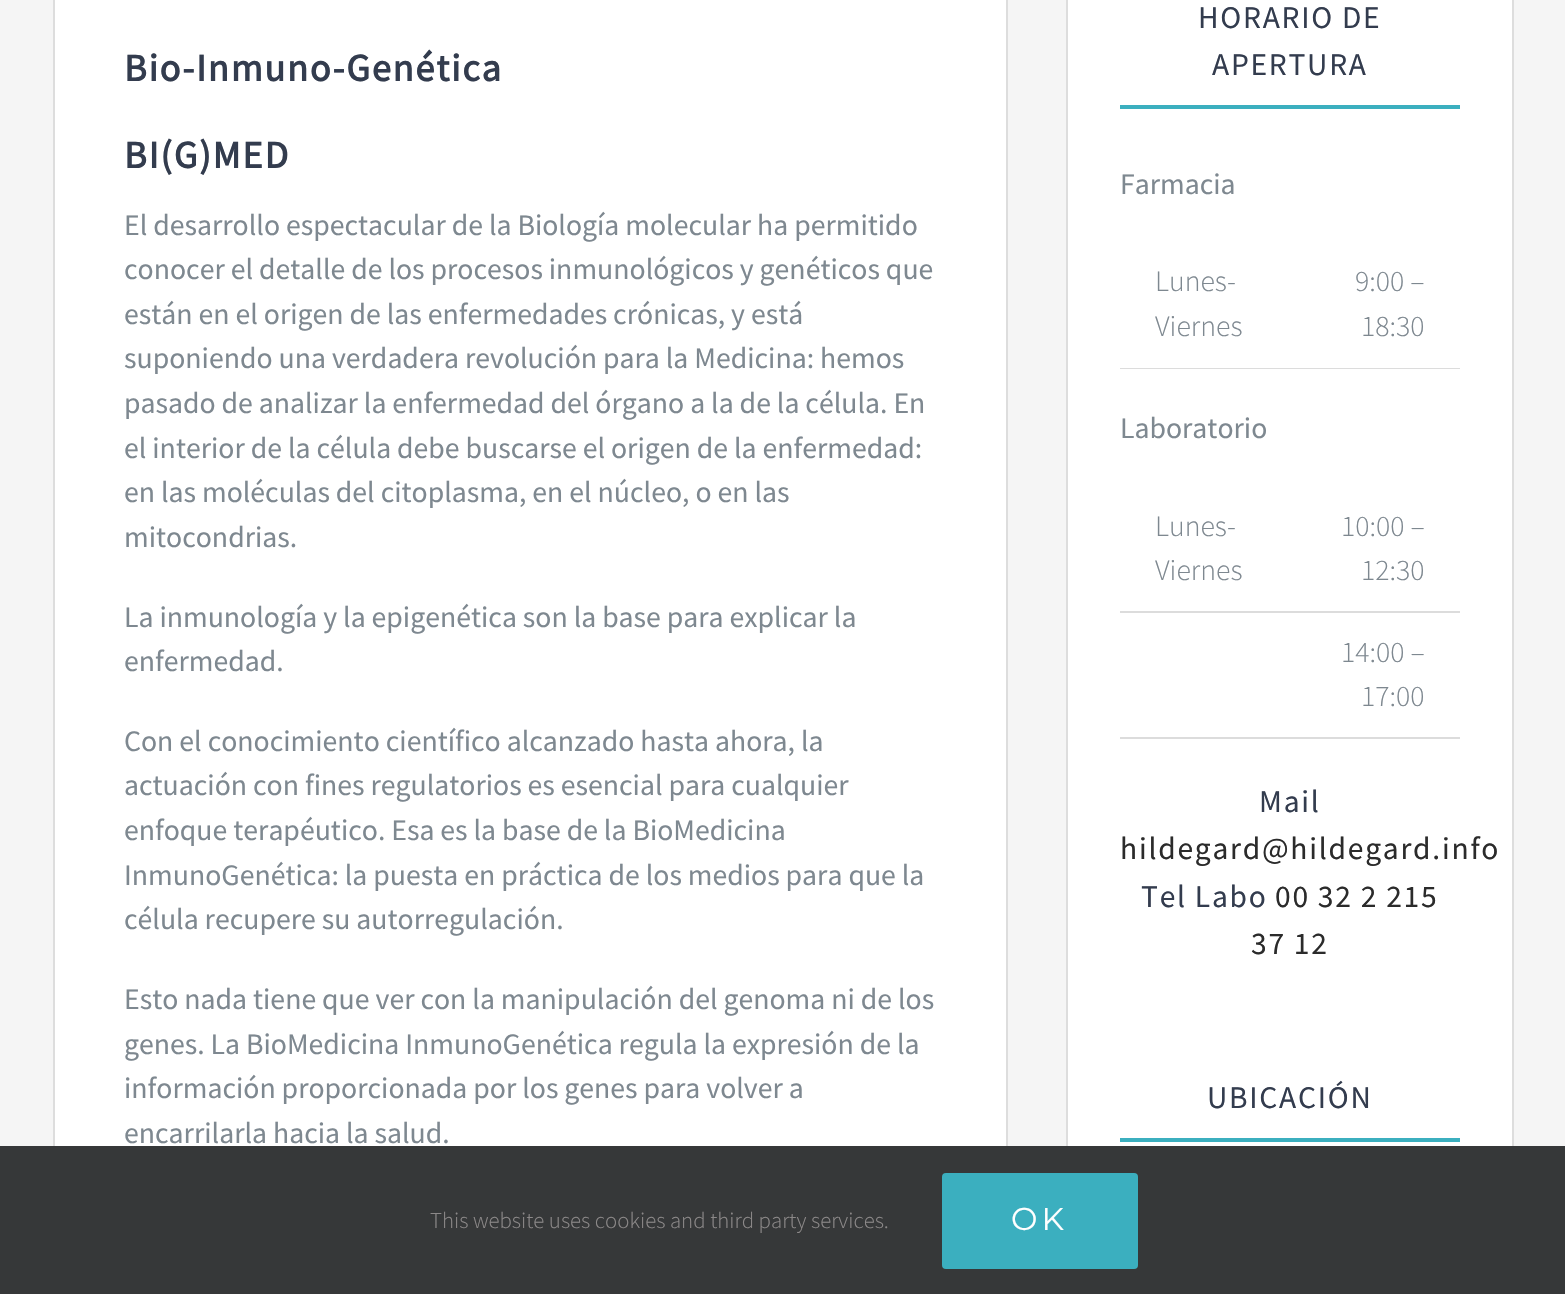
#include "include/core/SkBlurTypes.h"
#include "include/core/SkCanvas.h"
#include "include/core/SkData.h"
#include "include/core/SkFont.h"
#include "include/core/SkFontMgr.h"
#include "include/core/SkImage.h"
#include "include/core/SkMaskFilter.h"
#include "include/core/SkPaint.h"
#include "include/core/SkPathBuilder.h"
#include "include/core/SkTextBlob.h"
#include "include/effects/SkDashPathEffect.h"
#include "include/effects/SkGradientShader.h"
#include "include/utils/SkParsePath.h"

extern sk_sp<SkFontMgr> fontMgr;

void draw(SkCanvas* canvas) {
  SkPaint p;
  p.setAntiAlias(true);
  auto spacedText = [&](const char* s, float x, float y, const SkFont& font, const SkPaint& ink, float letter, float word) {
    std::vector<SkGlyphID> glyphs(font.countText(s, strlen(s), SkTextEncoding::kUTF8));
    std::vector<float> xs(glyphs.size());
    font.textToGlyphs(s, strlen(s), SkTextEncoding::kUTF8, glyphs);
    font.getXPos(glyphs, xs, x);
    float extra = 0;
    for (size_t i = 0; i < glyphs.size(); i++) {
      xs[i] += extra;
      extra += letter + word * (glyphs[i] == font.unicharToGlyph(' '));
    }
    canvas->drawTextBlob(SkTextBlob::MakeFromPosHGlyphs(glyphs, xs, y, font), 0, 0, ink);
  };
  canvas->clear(SkColorSetRGB(245, 245, 245));
  p.setColor(SK_ColorWHITE);
  canvas->drawRect(SkRect::MakeLTRB(55, 0, 1006, 1146), p);
  p.setStyle(SkPaint::kStroke_Style);
  p.setStrokeWidth(2);
  p.setColor(SkColorSetRGB(221, 221, 221));
  canvas->drawRect(SkRect::MakeLTRB(54, -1, 1007, 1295), p);
  p.setStyle(SkPaint::kFill_Style);
  p.setColor(SK_ColorWHITE);
  canvas->drawRect(SkRect::MakeLTRB(1068, 0, 1512, 1146), p);
  p.setStyle(SkPaint::kStroke_Style);
  p.setColor(SkColorSetRGB(221, 221, 221));
  canvas->drawRect(SkRect::MakeLTRB(1067, -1, 1513, 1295), p);
  p.setStyle(SkPaint::kFill_Style);
  p.setColor(SkColorSetRGB(59, 175, 191));
  canvas->drawRect(SkRect::MakeLTRB(1120, 105, 1460, 109), p);
  p.setColor(SkColorSetRGB(220, 220, 220));
  canvas->drawRect(SkRect::MakeLTRB(1120, 368, 1460, 369), p);
  canvas->drawRect(SkRect::MakeLTRB(1120, 611, 1460, 613), p);
  canvas->drawRect(SkRect::MakeLTRB(1120, 737, 1460, 739), p);
  p.setColor(SkColorSetRGB(59, 175, 191));
  canvas->drawRect(SkRect::MakeLTRB(1120, 1138, 1460, 1142), p);
  p.setColor(SkColorSetRGB(54, 56, 57));
  canvas->drawRect(SkRect::MakeLTRB(0, 1146, 1565, 1294), p);
  p.setColor(SkColorSetRGB(59, 175, 191));
  canvas->drawRoundRect(SkRect::MakeLTRB(942, 1173, 1138, 1269), 4, 4, p);
  SkFont font1(fontMgr->matchFamilyStyle("Source Sans Pro", SkFontStyle::Bold()), 38.5f);
  font1.setSubpixel(true);
  p.setColor(SkColorSetRGB(51, 60, 78));
  spacedText("Bio-Inmuno-Genética", 124, 81, font1, p, 1.75f, 0);
  spacedText("BI(G)MED", 124, 168, font1, p, 1.75f, 0);
  SkFont font2(fontMgr->matchFamilyStyle("Source Sans Pro", SkFontStyle::Normal()), 29.75f);
  font2.setSubpixel(true);
  p.setColor(SkColorSetRGB(126, 136, 144));
  canvas->drawString("El desarrollo espectacular de la Biología molecular ha permitido", 124, 235, font2, p);
  canvas->drawString("conocer el detalle de los procesos inmunológicos y genéticos que", 124, 279, font2, p);
  canvas->drawString("están en el origen de las enfermedades crónicas, y está", 124, 324, font2, p);
  canvas->drawString("suponiendo una verdadera revolución para la Medicina: hemos", 124, 368, font2, p);
  canvas->drawString("pasado de analizar la enfermedad del órgano a la de la célula. En", 124, 413, font2, p);
  canvas->drawString("el interior de la célula debe buscarse el origen de la enfermedad:", 124, 458, font2, p);
  canvas->drawString("en las moléculas del citoplasma, en el núcleo, o en las", 124, 502, font2, p);
  canvas->drawString("mitocondrias.", 124, 547, font2, p);
  canvas->drawString("La inmunología y la epigenética son la base para explicar la", 124, 627, font2, p);
  canvas->drawString("enfermedad.", 124, 671, font2, p);
  canvas->drawString("Con el conocimiento científico alcanzado hasta ahora, la", 124, 751, font2, p);
  canvas->drawString("actuación con fines regulatorios es esencial para cualquier", 124, 795, font2, p);
  canvas->drawString("enfoque terapéutico. Esa es la base de la BioMedicina", 124, 840, font2, p);
  canvas->drawString("InmunoGenética: la puesta en práctica de los medios para que la", 124, 885, font2, p);
  canvas->drawString("célula recupere su autorregulación.", 124, 929, font2, p);
  canvas->drawString("Esto nada tiene que ver con la manipulación del genoma ni de los", 124, 1009, font2, p);
  canvas->drawString("genes. La BioMedicina InmunoGenética regula la expresión de la", 124, 1054, font2, p);
  canvas->drawString("información proporcionada por los genes para volver a", 124, 1098, font2, p);
  canvas->drawString("encarrilarla hacia la salud.", 124, 1143, font2, p);
  SkFont font3(fontMgr->matchFamilyStyle("Source Sans Pro", SkFontStyle::Normal()), 31.5f);
  font3.setSubpixel(true);
  p.setColor(SkColorSetRGB(51, 60, 78));
  spacedText("HORARIO DE", 1198, 28, font3, p, 1.75f, 0);
  spacedText("APERTURA", 1212, 75, font3, p, 1.75f, 0);
  p.setColor(SkColorSetRGB(126, 136, 144));
  canvas->drawString("Farmacia", 1120, 194, font2, p);
  SkFont font4(fontMgr->matchFamilyStyle("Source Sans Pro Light", SkFontStyle(300, SkFontStyle::kNormal_Width, SkFontStyle::kUpright_Slant)), 29.75f);
  font4.setSubpixel(true);
  canvas->drawString("Lunes-", 1155, 291, font4, p);
  canvas->drawString("Viernes", 1155, 336, font4, p);
  canvas->drawString("9:00 –", 1355, 291, font4, p);
  canvas->drawString("18:30", 1361, 336, font4, p);
  canvas->drawString("Laboratorio", 1120, 438, font2, p);
  canvas->drawString("Lunes-", 1155, 536, font4, p);
  canvas->drawString("Viernes", 1155, 580, font4, p);
  canvas->drawString("10:00 –", 1341, 536, font4, p);
  canvas->drawString("12:30", 1361, 580, font4, p);
  canvas->drawString("14:00 –", 1341, 662, font4, p);
  canvas->drawString("17:00", 1361, 706, font4, p);
  p.setColor(SkColorSetRGB(51, 60, 78));
  spacedText("Mail", 1259, 812, font3, p, 1.75f, 0);
  p.setColor(SkColorSetRGB(43, 43, 43));
  spacedText("hildegard@hildegard.info", 1120, 859, font3, p, 1.75f, 0);
  p.setColor(SkColorSetRGB(51, 60, 78));
  spacedText("Tel Labo", 1141, 907, font3, p, 1.75f, 0);
  p.setColor(SkColorSetRGB(43, 43, 43));
  spacedText("00 32 2 215", 1275, 907, font3, p, 1.75f, 0);
  spacedText("37 12", 1251, 954, font3, p, 1.75f, 0);
  p.setColor(SkColorSetRGB(51, 60, 78));
  spacedText("UBICACIÓN", 1207, 1108, font3, p, 1.75f, 0);
  SkFont font5(fontMgr->matchFamilyStyle("Source Sans Pro Light", SkFontStyle(300, SkFontStyle::kNormal_Width, SkFontStyle::kUpright_Slant)), 22.75f);
  font5.setSubpixel(true);
  p.setColor(SkColorSetRGB(140, 137, 137));
  canvas->drawString("This website uses cookies and third party services.", 430, 1228, font5, p);
  SkFont font6(fontMgr->matchFamilyStyle("Montserrat", SkFontStyle(100, SkFontStyle::kNormal_Width, SkFontStyle::kUpright_Slant)), 31.5f);
  font6.setSubpixel(true);
  p.setColor(SK_ColorWHITE);
  spacedText("OK", 1011, 1230, font6, p, 4, 0);
}
